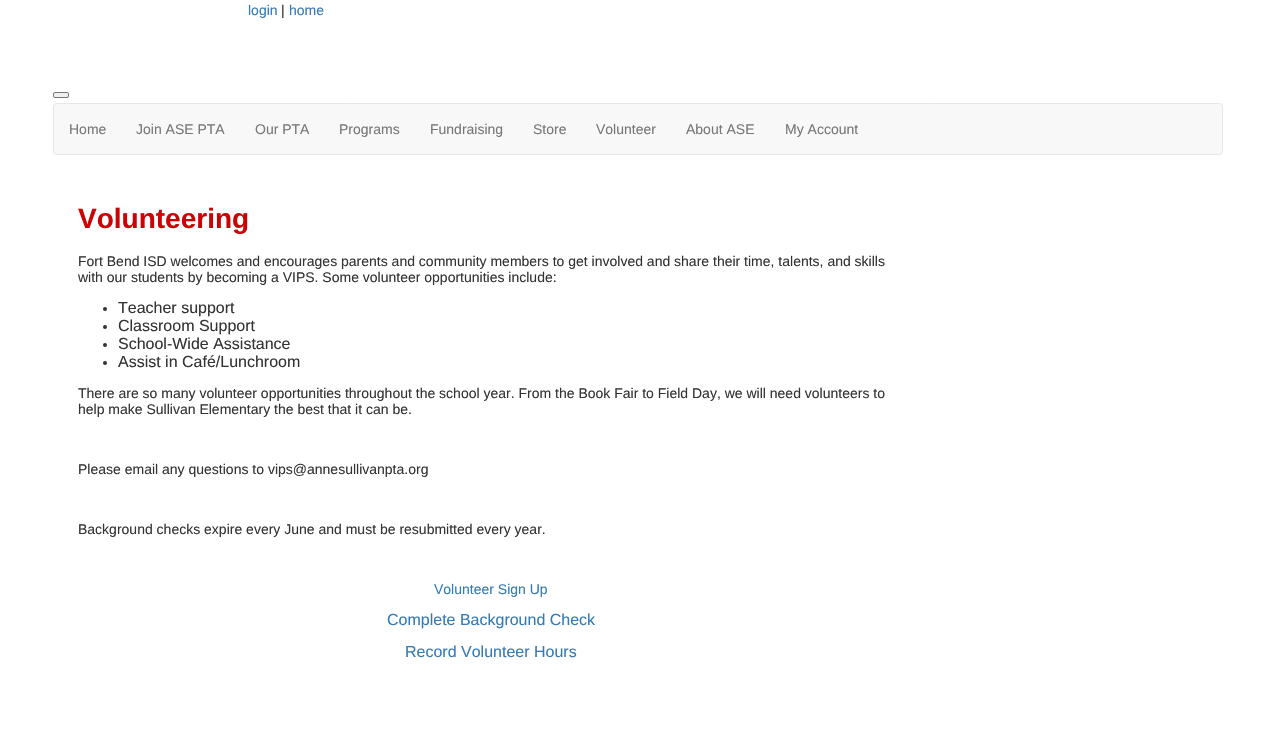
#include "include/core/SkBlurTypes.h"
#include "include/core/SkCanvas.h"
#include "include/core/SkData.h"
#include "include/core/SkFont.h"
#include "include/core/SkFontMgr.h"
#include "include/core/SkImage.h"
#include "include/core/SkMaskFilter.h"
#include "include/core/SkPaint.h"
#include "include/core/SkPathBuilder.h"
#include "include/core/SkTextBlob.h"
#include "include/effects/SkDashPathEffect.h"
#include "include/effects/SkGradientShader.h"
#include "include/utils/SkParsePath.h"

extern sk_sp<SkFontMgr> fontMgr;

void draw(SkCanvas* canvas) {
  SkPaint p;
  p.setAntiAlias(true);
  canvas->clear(SK_ColorWHITE);
  p.setColor(SkColorSetRGB(239, 239, 239));
  canvas->drawRoundRect(SkRect::MakeLTRB(53.5f, 92.5f, 68.5f, 97.5f), 1.5f, 1.5f, p);
  p.setStyle(SkPaint::kStroke_Style);
  p.setStrokeWidth(1);
  p.setColor(SkColorSetRGB(118, 118, 118));
  canvas->drawRoundRect(SkRect::MakeLTRB(53.5f, 92.5f, 68.5f, 97.5f), 1.5f, 1.5f, p);
  p.setStyle(SkPaint::kFill_Style);
  p.setColor(SkColorSetRGB(248, 248, 248));
  canvas->drawRoundRect(SkRect::MakeLTRB(53.5f, 103.5f, 1222.5f, 154.5f), 3.5f, 3.5f, p);
  p.setStyle(SkPaint::kStroke_Style);
  p.setColor(SkColorSetRGB(231, 231, 231));
  canvas->drawRoundRect(SkRect::MakeLTRB(53.5f, 103.5f, 1222.5f, 154.5f), 3.5f, 3.5f, p);
  p.setStyle(SkPaint::kFill_Style);
  p.setColor(SkColorSetRGB(51, 51, 51));
  canvas->drawCircle(105, 309, 2, p);
  canvas->drawCircle(105, 327, 2, p);
  canvas->drawCircle(105, 345, 2, p);
  canvas->drawCircle(105, 363, 2, p);
  SkFont font1(fontMgr->matchFamilyStyle("Liberation Sans", SkFontStyle::Normal()), 14);
  font1.setSubpixel(true);
  p.setColor(SkColorSetRGB(51, 122, 183));
  canvas->drawString("login", 248, 15, font1, p);
  p.setColor(SkColorSetRGB(51, 51, 51));
  canvas->drawString("|", 281, 15, font1, p);
  p.setColor(SkColorSetRGB(51, 122, 183));
  canvas->drawString("home", 289, 15, font1, p);
  p.setColor(SkColorSetRGB(119, 119, 119));
  canvas->drawString("Home", 69, 134, font1, p);
  canvas->drawString("Join ASE PTA", 136, 134, font1, p);
  canvas->drawString("Our PTA", 255, 134, font1, p);
  canvas->drawString("Programs", 339, 134, font1, p);
  canvas->drawString("Fundraising", 430, 134, font1, p);
  canvas->drawString("Store", 533, 134, font1, p);
  canvas->drawString("Volunteer", 596, 134, font1, p);
  canvas->drawString("About ASE", 686, 134, font1, p);
  canvas->drawString("My Account", 785, 134, font1, p);
  SkFont font2(fontMgr->matchFamilyStyle("Liberation Sans", SkFontStyle::Bold()), 28);
  font2.setSubpixel(true);
  p.setColor(SkColorSetRGB(204, 3, 3));
  canvas->drawString("Volunteering", 78, 228, font2, p);
  p.setColor(SkColorSetRGB(51, 51, 51));
  canvas->drawString("Fort Bend ISD welcomes and encourages parents and community members to get involved and share their time, talents, and skills", 78, 266, font1, p);
  canvas->drawString("with our students by becoming a VIPS. Some volunteer opportunities include:", 78, 282, font1, p);
  SkFont font3(fontMgr->matchFamilyStyle("Liberation Sans", SkFontStyle::Normal()), 16);
  font3.setSubpixel(true);
  canvas->drawString("Teacher support", 118, 313, font3, p);
  canvas->drawString("Classroom Support", 118, 331, font3, p);
  canvas->drawString("School-Wide Assistance", 118, 349, font3, p);
  canvas->drawString("Assist in Café/Lunchroom", 118, 367, font3, p);
  canvas->drawString("There are so many volunteer opportunities throughout the school year. From the Book Fair to Field Day, we will need volunteers to", 78, 398, font1, p);
  canvas->drawString("help make Sullivan Elementary the best that it can be.", 78, 414, font1, p);
  canvas->drawString("Please email any questions to vips@annesullivanpta.org", 78, 474, font1, p);
  canvas->drawString("Background checks expire every June and must be resubmitted every year.", 78, 534, font1, p);
  p.setColor(SkColorSetRGB(51, 122, 183));
  canvas->drawString("Volunteer Sign Up", 434, 594, font1, p);
  canvas->drawString("Complete Background Check", 387, 625, font3, p);
  canvas->drawString("Record Volunteer Hours", 405, 657, font3, p);
}
